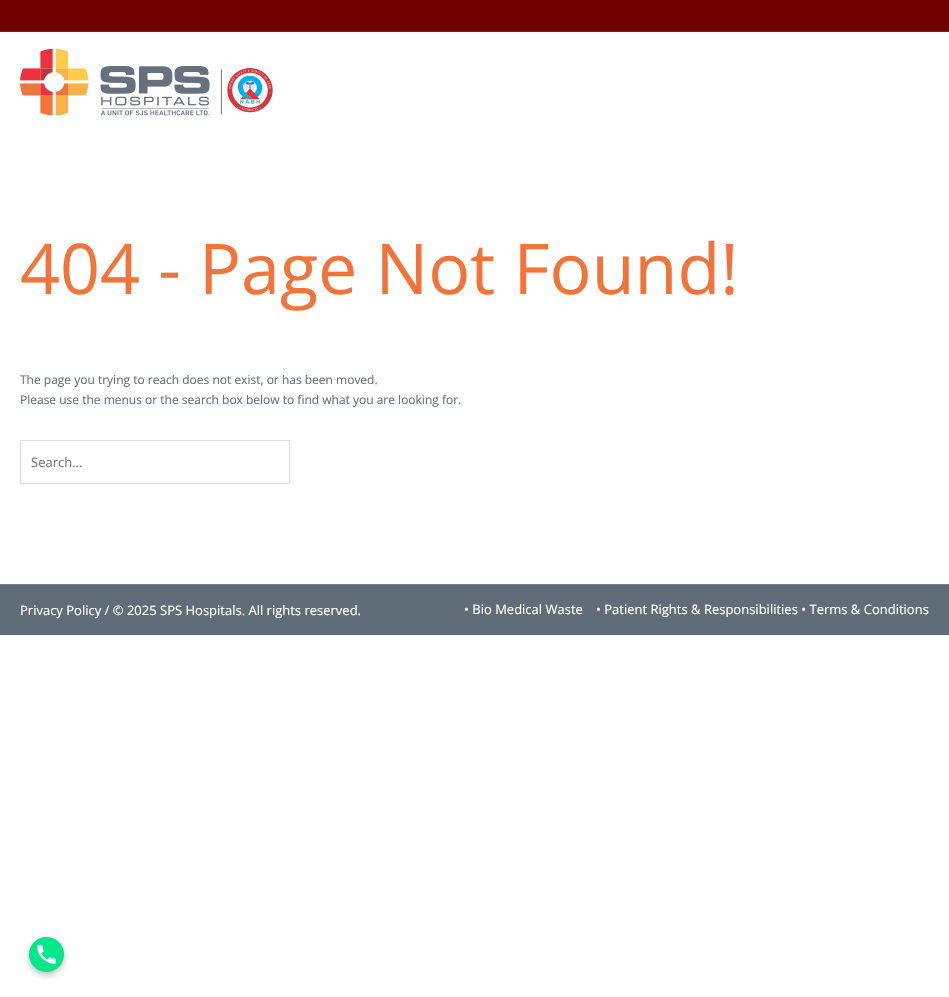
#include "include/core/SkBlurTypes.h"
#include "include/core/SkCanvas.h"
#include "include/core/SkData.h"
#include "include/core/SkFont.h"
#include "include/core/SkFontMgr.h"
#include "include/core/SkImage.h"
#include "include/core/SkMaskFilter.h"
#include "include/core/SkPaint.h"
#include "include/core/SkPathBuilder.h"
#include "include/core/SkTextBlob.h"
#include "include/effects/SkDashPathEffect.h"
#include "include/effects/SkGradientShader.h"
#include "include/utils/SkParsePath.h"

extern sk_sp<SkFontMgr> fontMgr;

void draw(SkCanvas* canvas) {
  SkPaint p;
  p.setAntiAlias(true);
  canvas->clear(SK_ColorWHITE);
  p.setColor(SkColorSetRGB(114, 0, 0));
  canvas->drawRect(SkRect::MakeLTRB(0, 0, 949, 31), p);
  p.setColor(SkColorSetRGB(128, 26, 26));
  canvas->drawRect(SkRect::MakeLTRB(0, 31, 949, 32), p);
  canvas->drawImageRect(SkImages::DeferredFromEncodedData(SkData::MakeFromFileName("images/1.png")), SkRect::MakeLTRB(20, 48, 273, 116), SkSamplingOptions());
  p.setStyle(SkPaint::kStroke_Style);
  p.setStrokeWidth(1);
  p.setColor(SkColorSetRGB(224, 224, 224));
  canvas->drawRect(SkRect::MakeLTRB(20.5f, 440.5f, 289.5f, 483.5f), p);
  p.setStyle(SkPaint::kFill_Style);
  p.setColor(SkColorSetRGB(96, 108, 120));
  canvas->drawRect(SkRect::MakeLTRB(0, 585, 949, 635), p);
  p.setColor(SkColorSetRGB(115, 126, 136));
  canvas->drawRect(SkRect::MakeLTRB(0, 584, 949, 585), p);
  p.setColor(SkColorSetARGB(64, 0, 0, 0));
  p.setMaskFilter(SkMaskFilter::MakeBlur(kNormal_SkBlurStyle, 3));
  canvas->drawRoundRect(SkRect::MakeLTRB(29, 940, 64, 975), 17.5f, 17.5f, p);
  p.setMaskFilter(nullptr);
  canvas->drawImageRect(SkImages::DeferredFromEncodedData(SkData::MakeFromFileName("images/2.png")), SkRect::MakeLTRB(29, 937, 64, 972), SkSamplingOptions());
  SkFont font1(fontMgr->matchFamilyStyle("Open Sans", SkFontStyle::Normal()), 70);
  font1.setSubpixel(true);
  p.setColor(SkColorSetRGB(243, 116, 58));
  canvas->drawString("404 - Page Not Found!", 20, 294, font1, p);
  SkFont font2(fontMgr->matchFamilyStyle("Open Sans", SkFontStyle::Normal()), 12);
  font2.setSubpixel(true);
  p.setColor(SkColorSetRGB(103, 113, 125));
  canvas->drawString("The page you trying to reach does not exist, or has been moved.", 20, 384, font2, p);
  canvas->drawString("Please use the menus or the search box below to find what you are looking for.", 20, 404, font2, p);
  SkFont font3(fontMgr->matchFamilyStyle("Open Sans", SkFontStyle::Normal()), 13);
  font3.setSubpixel(true);
  p.setColor(SkColorSetRGB(120, 120, 120));
  canvas->drawString("Search...", 31, 467, font3, p);
  p.setColor(SK_ColorWHITE);
  canvas->drawString("Privacy Policy / © 2025 SPS Hospitals. All rights reserved.", 20, 615, font3, p);
  canvas->drawString("• Bio Medical Waste", 464, 614, font3, p);
  canvas->drawString("• Patient Rights & Responsibilities • Terms & Conditions", 596, 614, font3, p);
}
